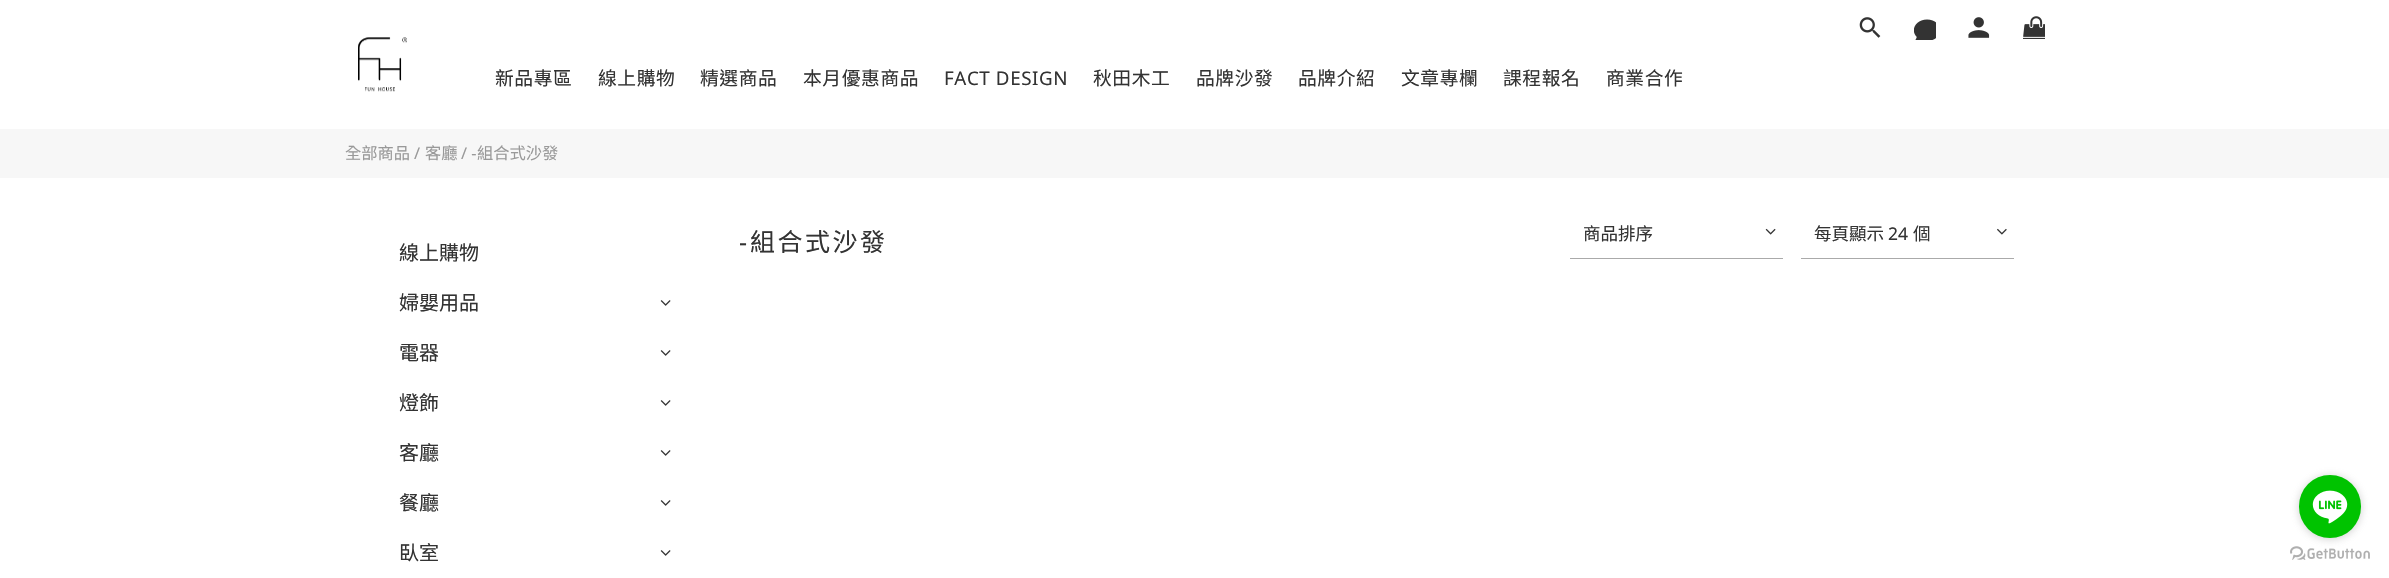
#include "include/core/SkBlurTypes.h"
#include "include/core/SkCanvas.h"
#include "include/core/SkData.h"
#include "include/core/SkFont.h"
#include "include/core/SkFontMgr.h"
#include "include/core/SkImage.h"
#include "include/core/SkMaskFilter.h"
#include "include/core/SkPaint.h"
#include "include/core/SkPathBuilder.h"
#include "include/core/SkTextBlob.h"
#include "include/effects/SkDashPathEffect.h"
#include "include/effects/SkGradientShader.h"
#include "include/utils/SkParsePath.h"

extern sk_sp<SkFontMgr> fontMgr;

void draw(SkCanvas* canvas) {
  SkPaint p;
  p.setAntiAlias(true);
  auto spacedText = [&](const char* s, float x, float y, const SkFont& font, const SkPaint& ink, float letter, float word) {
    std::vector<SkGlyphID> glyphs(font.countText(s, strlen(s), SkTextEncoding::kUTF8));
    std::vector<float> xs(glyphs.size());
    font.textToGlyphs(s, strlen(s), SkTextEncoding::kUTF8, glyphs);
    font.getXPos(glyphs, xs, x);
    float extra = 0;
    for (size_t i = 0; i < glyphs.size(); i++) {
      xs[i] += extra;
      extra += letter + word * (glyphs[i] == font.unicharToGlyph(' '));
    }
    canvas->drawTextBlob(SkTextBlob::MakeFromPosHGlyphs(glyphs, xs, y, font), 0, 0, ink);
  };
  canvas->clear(SK_ColorWHITE);
  canvas->drawImageRect(SkImages::DeferredFromEncodedData(SkData::MakeFromFileName("images/1.png")), SkRect::MakeLTRB(1859, 17, 1881, 38), SkSamplingOptions());
  canvas->drawImageRect(SkImages::DeferredFromEncodedData(SkData::MakeFromFileName("images/2.png")), SkRect::MakeLTRB(1914, 19, 1936, 40), SkSamplingOptions());
  canvas->drawImageRect(SkImages::DeferredFromEncodedData(SkData::MakeFromFileName("images/3.png")), SkRect::MakeLTRB(1968, 17, 1990, 38), SkSamplingOptions());
  canvas->drawImageRect(SkImages::DeferredFromEncodedData(SkData::MakeFromFileName("images/4.png")), SkRect::MakeLTRB(2023, 16, 2045, 39), SkSamplingOptions());
  canvas->drawImageRect(SkImages::DeferredFromEncodedData(SkData::MakeFromFileName("images/5.png")), SkRect::MakeLTRB(358, 37, 407, 92), SkSamplingOptions());
  p.setColor(SkColorSetRGB(247, 247, 247));
  canvas->drawRect(SkRect::MakeLTRB(0, 129, 2389, 178), p);
  p.setColor(SkColorSetRGB(170, 170, 170));
  canvas->drawRect(SkRect::MakeLTRB(1570, 258, 1783, 259), p);
  canvas->drawImageRect(SkImages::DeferredFromEncodedData(SkData::MakeFromFileName("images/6.png")), SkRect::MakeLTRB(1765, 228, 1776, 235), SkSamplingOptions());
  canvas->drawRect(SkRect::MakeLTRB(1801, 258, 2014, 259), p);
  canvas->drawImageRect(SkImages::DeferredFromEncodedData(SkData::MakeFromFileName("images/7.png")), SkRect::MakeLTRB(1997, 228, 2007, 235), SkSamplingOptions());
  canvas->drawImageRect(SkImages::DeferredFromEncodedData(SkData::MakeFromFileName("images/8.png")), SkRect::MakeLTRB(660, 300, 671, 306), SkSamplingOptions());
  canvas->drawImageRect(SkImages::DeferredFromEncodedData(SkData::MakeFromFileName("images/8.png")), SkRect::MakeLTRB(660, 350, 671, 356), SkSamplingOptions());
  canvas->drawImageRect(SkImages::DeferredFromEncodedData(SkData::MakeFromFileName("images/8.png")), SkRect::MakeLTRB(660, 400, 671, 406), SkSamplingOptions());
  canvas->drawImageRect(SkImages::DeferredFromEncodedData(SkData::MakeFromFileName("images/8.png")), SkRect::MakeLTRB(660, 450, 671, 456), SkSamplingOptions());
  canvas->drawImageRect(SkImages::DeferredFromEncodedData(SkData::MakeFromFileName("images/8.png")), SkRect::MakeLTRB(660, 500, 671, 506), SkSamplingOptions());
  canvas->drawImageRect(SkImages::DeferredFromEncodedData(SkData::MakeFromFileName("images/8.png")), SkRect::MakeLTRB(660, 550, 671, 556), SkSamplingOptions());
  canvas->drawImageRect(SkImages::DeferredFromEncodedData(SkData::MakeFromFileName("images/10.png")), SkRect::MakeLTRB(2290, 546, 2370, 560), SkSamplingOptions());
  p.setColor(SkColorSetARGB(102, 136, 136, 136));
  p.setMaskFilter(SkMaskFilter::MakeBlur(kNormal_SkBlurStyle, 4.5f));
  canvas->drawRoundRect(SkRect::MakeLTRB(2299, 476, 2361, 539), 31, 31, p);
  p.setMaskFilter(nullptr);
  p.setColor(SkColorSetRGB(0, 195, 0));
  canvas->drawRoundRect(SkRect::MakeLTRB(2299, 475, 2361, 538), 31, 31, p);
  canvas->drawImageRect(SkImages::DeferredFromEncodedData(SkData::MakeFromFileName("images/9.png")), SkRect::MakeLTRB(2312, 490, 2348, 524), SkSamplingOptions());
  SkFont font1(fontMgr->matchFamilyStyle("Noto Sans TC", SkFontStyle::Normal()), 18.75f);
  font1.setSubpixel(true);
  p.setColor(SkColorSetRGB(51, 51, 51));
  spacedText("新品專區", 495, 85, font1, p, 0.6f, 0);
  spacedText("線上購物", 598, 85, font1, p, 0.6f, 0);
  spacedText("精選商品", 700, 85, font1, p, 0.6f, 0);
  spacedText("本月優惠商品", 803, 85, font1, p, 0.6f, 0);
  SkFont font2(fontMgr->matchFamilyStyle("Noto Sans", SkFontStyle::Normal()), 18.75f);
  font2.setSubpixel(true);
  spacedText("FACT DESIGN", 944, 85, font2, p, 0.6f, 0);
  spacedText("秋田木工", 1093, 85, font1, p, 0.6f, 0);
  spacedText("品牌沙發", 1196, 85, font1, p, 0.6f, 0);
  spacedText("品牌介紹", 1298, 85, font1, p, 0.6f, 0);
  spacedText("文章專欄", 1401, 85, font1, p, 0.6f, 0);
  spacedText("課程報名", 1503, 85, font1, p, 0.6f, 0);
  spacedText("商業合作", 1606, 85, font1, p, 0.6f, 0);
  SkFont font3(fontMgr->matchFamilyStyle("Noto Sans TC", SkFontStyle::Normal()), 16.25f);
  font3.setSubpixel(true);
  p.setColor(SkColorSetRGB(153, 153, 153));
  canvas->drawString("全部商品", 345, 159, font3, p);
  SkFont font4(fontMgr->matchFamilyStyle("Noto Sans", SkFontStyle::Normal()), 16.25f);
  font4.setSubpixel(true);
  canvas->drawString("/", 414, 159, font4, p);
  canvas->drawString("客廳", 425, 159, font3, p);
  canvas->drawString("/ -", 461, 159, font4, p);
  canvas->drawString("組合式沙發", 477, 159, font3, p);
  SkFont font5(fontMgr->matchFamilyStyle("Noto Sans", SkFontStyle::Normal()), 25);
  font5.setSubpixel(true);
  p.setColor(SkColorSetRGB(51, 51, 51));
  spacedText("-", 739, 251, font5, p, 2.5f, 0);
  SkFont font6(fontMgr->matchFamilyStyle("Noto Sans TC", SkFontStyle::Normal()), 25);
  font6.setSubpixel(true);
  spacedText("組合式沙發", 750, 251, font6, p, 2.5f, 0);
  SkFont font7(fontMgr->matchFamilyStyle("Noto Sans TC", SkFontStyle::Normal()), 17.5f);
  font7.setSubpixel(true);
  canvas->drawString("商品排序", 1583, 240, font7, p);
  canvas->drawString("每頁顯示", 1814, 240, font7, p);
  SkFont font8(fontMgr->matchFamilyStyle("Noto Sans", SkFontStyle::Normal()), 17.5f);
  font8.setSubpixel(true);
  canvas->drawString("24", 1888, 240, font8, p);
  canvas->drawString("個", 1913, 240, font7, p);
  SkFont font9(fontMgr->matchFamilyStyle("Noto Sans TC", SkFontStyle::Normal()), 20);
  font9.setSubpixel(true);
  canvas->drawString("線上購物", 399, 260, font9, p);
  canvas->drawString("婦嬰用品", 399, 310, font9, p);
  canvas->drawString("電器", 399, 360, font9, p);
  canvas->drawString("燈飾", 399, 410, font9, p);
  canvas->drawString("客廳", 399, 460, font9, p);
  canvas->drawString("餐廳", 399, 510, font9, p);
  canvas->drawString("臥室", 399, 560, font9, p);
}
